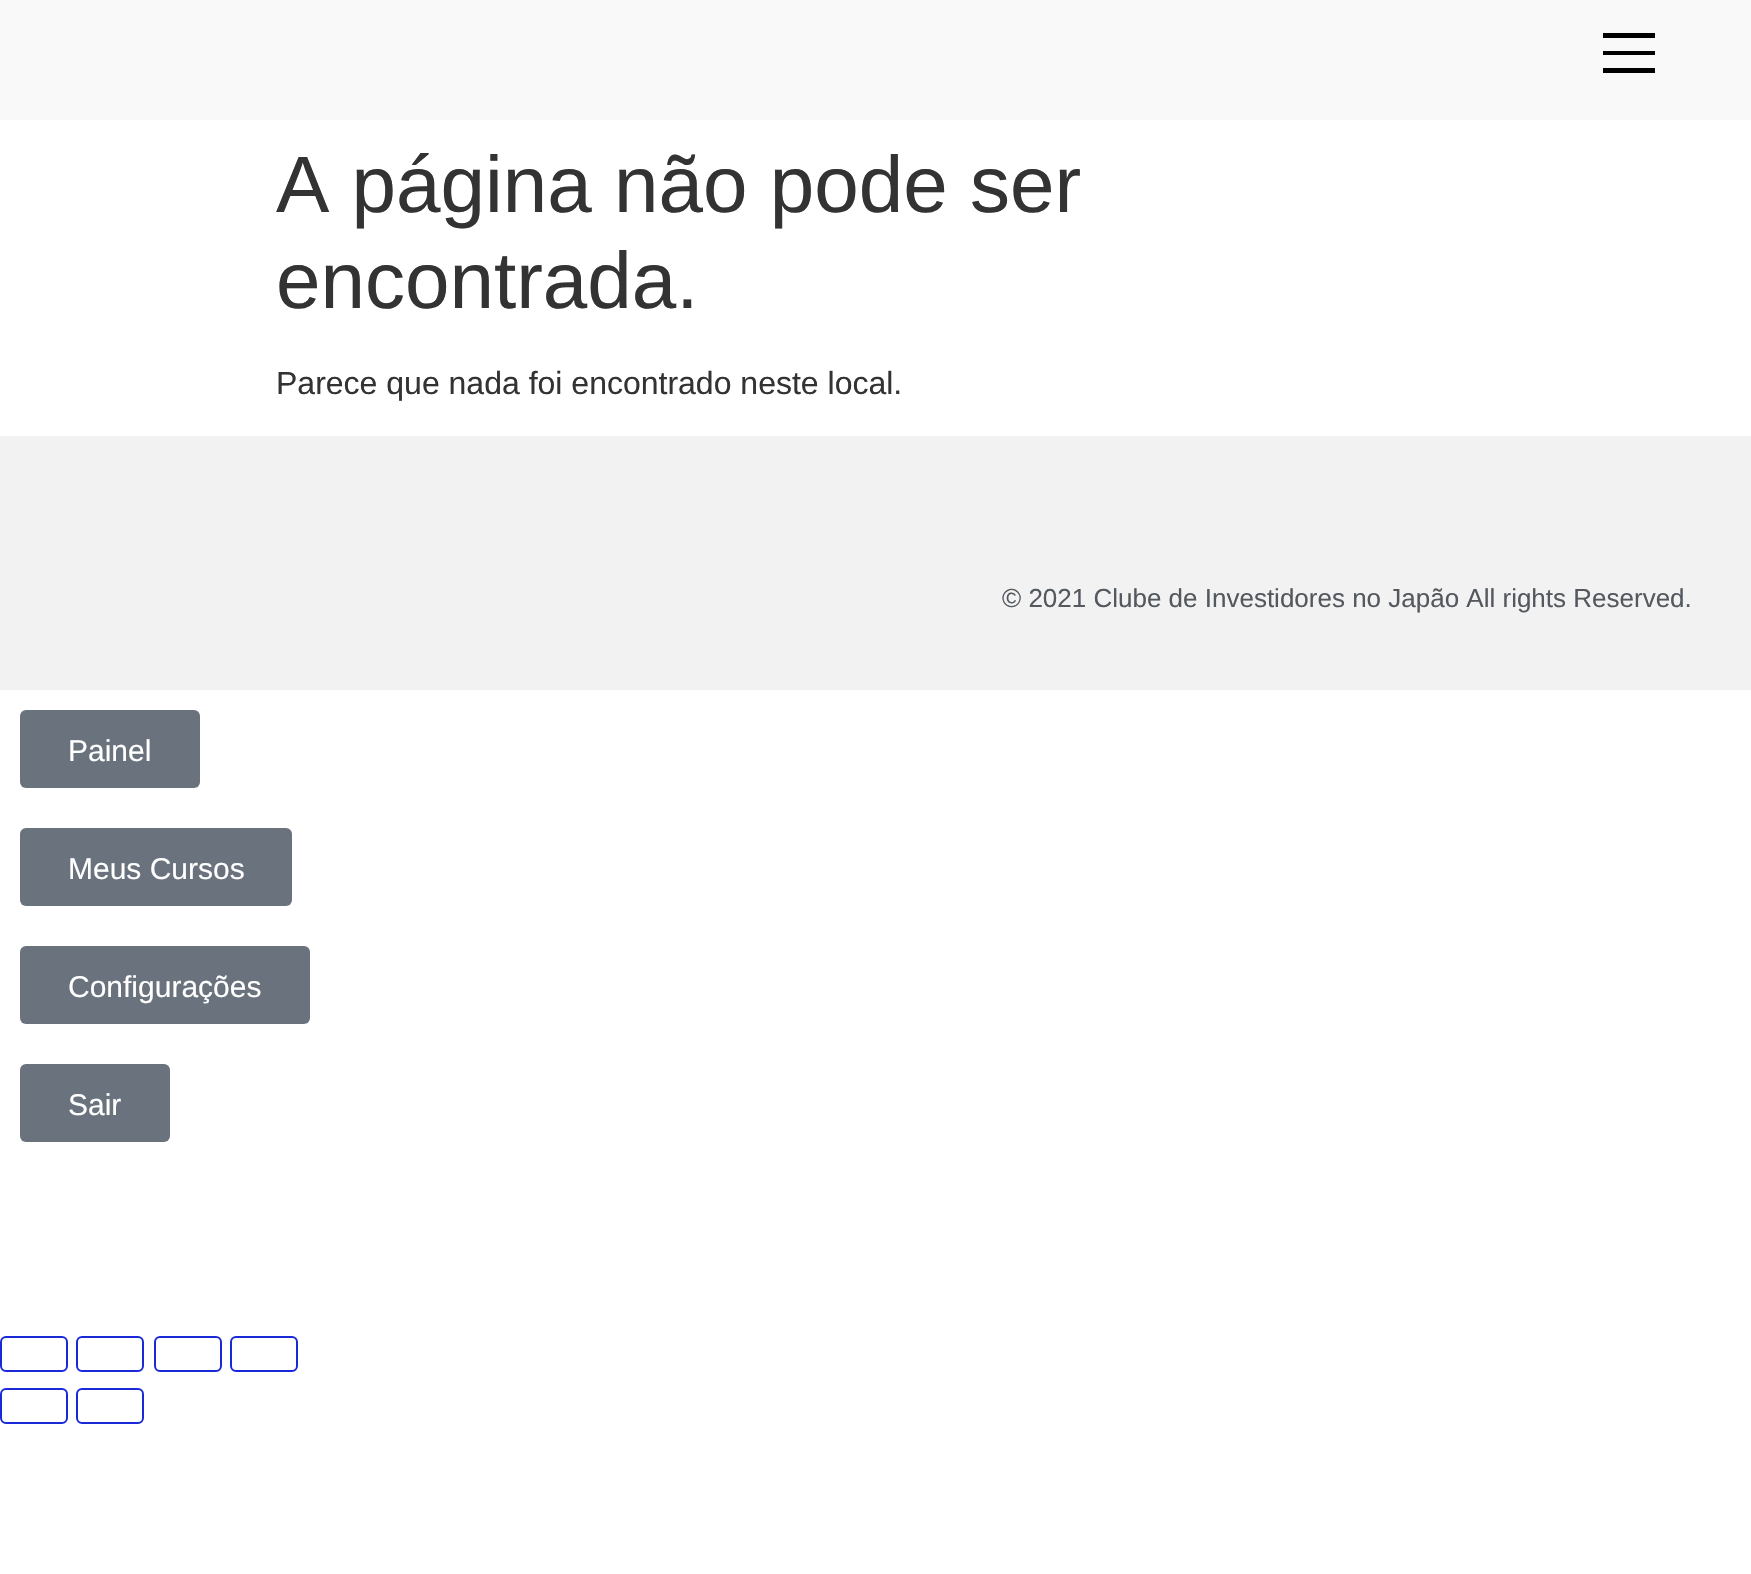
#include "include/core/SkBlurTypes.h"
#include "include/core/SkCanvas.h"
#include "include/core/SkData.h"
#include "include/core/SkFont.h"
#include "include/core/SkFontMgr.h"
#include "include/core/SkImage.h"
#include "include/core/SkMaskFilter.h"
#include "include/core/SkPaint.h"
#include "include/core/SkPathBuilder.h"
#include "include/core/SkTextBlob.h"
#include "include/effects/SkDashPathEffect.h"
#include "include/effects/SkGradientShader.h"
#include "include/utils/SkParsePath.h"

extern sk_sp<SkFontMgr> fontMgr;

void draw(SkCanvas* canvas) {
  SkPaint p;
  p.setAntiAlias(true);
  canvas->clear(SK_ColorWHITE);
  p.setColor(SkColorSetRGB(249, 249, 249));
  canvas->drawRect(SkRect::MakeLTRB(0, 0, 1751, 120), p);
  p.setColor(SK_ColorBLACK);
  canvas->drawPath(SkPathBuilder().moveTo(1603, 33).lineTo(1603, 38).lineTo(1655, 38).lineTo(1655, 33).close().moveTo(1603, 51).lineTo(1603, 55).lineTo(1655, 55).lineTo(1655, 51).close().moveTo(1603, 68).lineTo(1603, 73).lineTo(1655, 73).lineTo(1655, 68).close().detach(), p);
  p.setColor(SkColorSetRGB(242, 242, 242));
  canvas->drawRect(SkRect::MakeLTRB(0, 436, 1751, 690), p);
  p.setColor(SkColorSetRGB(105, 114, 125));
  canvas->drawRoundRect(SkRect::MakeLTRB(20, 710, 200, 788), 6, 6, p);
  canvas->drawRoundRect(SkRect::MakeLTRB(20, 828, 292, 906), 6, 6, p);
  canvas->drawRoundRect(SkRect::MakeLTRB(20, 946, 310, 1024), 6, 6, p);
  canvas->drawRoundRect(SkRect::MakeLTRB(20, 1064, 170, 1142), 6, 6, p);
  p.setStyle(SkPaint::kStroke_Style);
  p.setStrokeWidth(2);
  p.setColor(SkColorSetRGB(26, 41, 214));
  canvas->drawRoundRect(SkRect::MakeLTRB(1, 1337, 67, 1371), 5, 5, p);
  canvas->drawRoundRect(SkRect::MakeLTRB(77, 1337, 143, 1371), 5, 5, p);
  canvas->drawRoundRect(SkRect::MakeLTRB(155, 1337, 221, 1371), 5, 5, p);
  canvas->drawRoundRect(SkRect::MakeLTRB(231, 1337, 297, 1371), 5, 5, p);
  canvas->drawRoundRect(SkRect::MakeLTRB(1, 1389, 67, 1423), 5, 5, p);
  canvas->drawRoundRect(SkRect::MakeLTRB(77, 1389, 143, 1423), 5, 5, p);
  SkFont font1(fontMgr->matchFamilyStyle("Liberation Sans", SkFontStyle::Normal()), 80);
  font1.setSubpixel(true);
  p.setStyle(SkPaint::kFill_Style);
  p.setColor(SkColorSetRGB(51, 51, 51));
  canvas->drawString("A página não pode ser", 276, 212, font1, p);
  canvas->drawString("encontrada.", 276, 308, font1, p);
  SkFont font2(fontMgr->matchFamilyStyle("Liberation Sans", SkFontStyle::Normal()), 32);
  font2.setSubpixel(true);
  canvas->drawString("Parece que nada foi encontrado neste local.", 276, 394, font2, p);
  SkFont font3(fontMgr->matchFamilyStyle("Liberation Sans", SkFontStyle::Normal()), 26);
  font3.setSubpixel(true);
  p.setColor(SkColorSetRGB(84, 89, 95));
  canvas->drawString("© 2021 Clube de Investidores no Japão All rights Reserved.", 1002, 607, font3, p);
  SkFont font4(fontMgr->matchFamilyStyle("Liberation Sans", SkFontStyle::Normal()), 30);
  font4.setSubpixel(true);
  p.setColor(SK_ColorWHITE);
  canvas->drawString("Painel", 68, 761, font4, p);
  canvas->drawString("Meus Cursos", 68, 879, font4, p);
  canvas->drawString("Configurações", 68, 997, font4, p);
  canvas->drawString("Sair", 68, 1115, font4, p);
}
